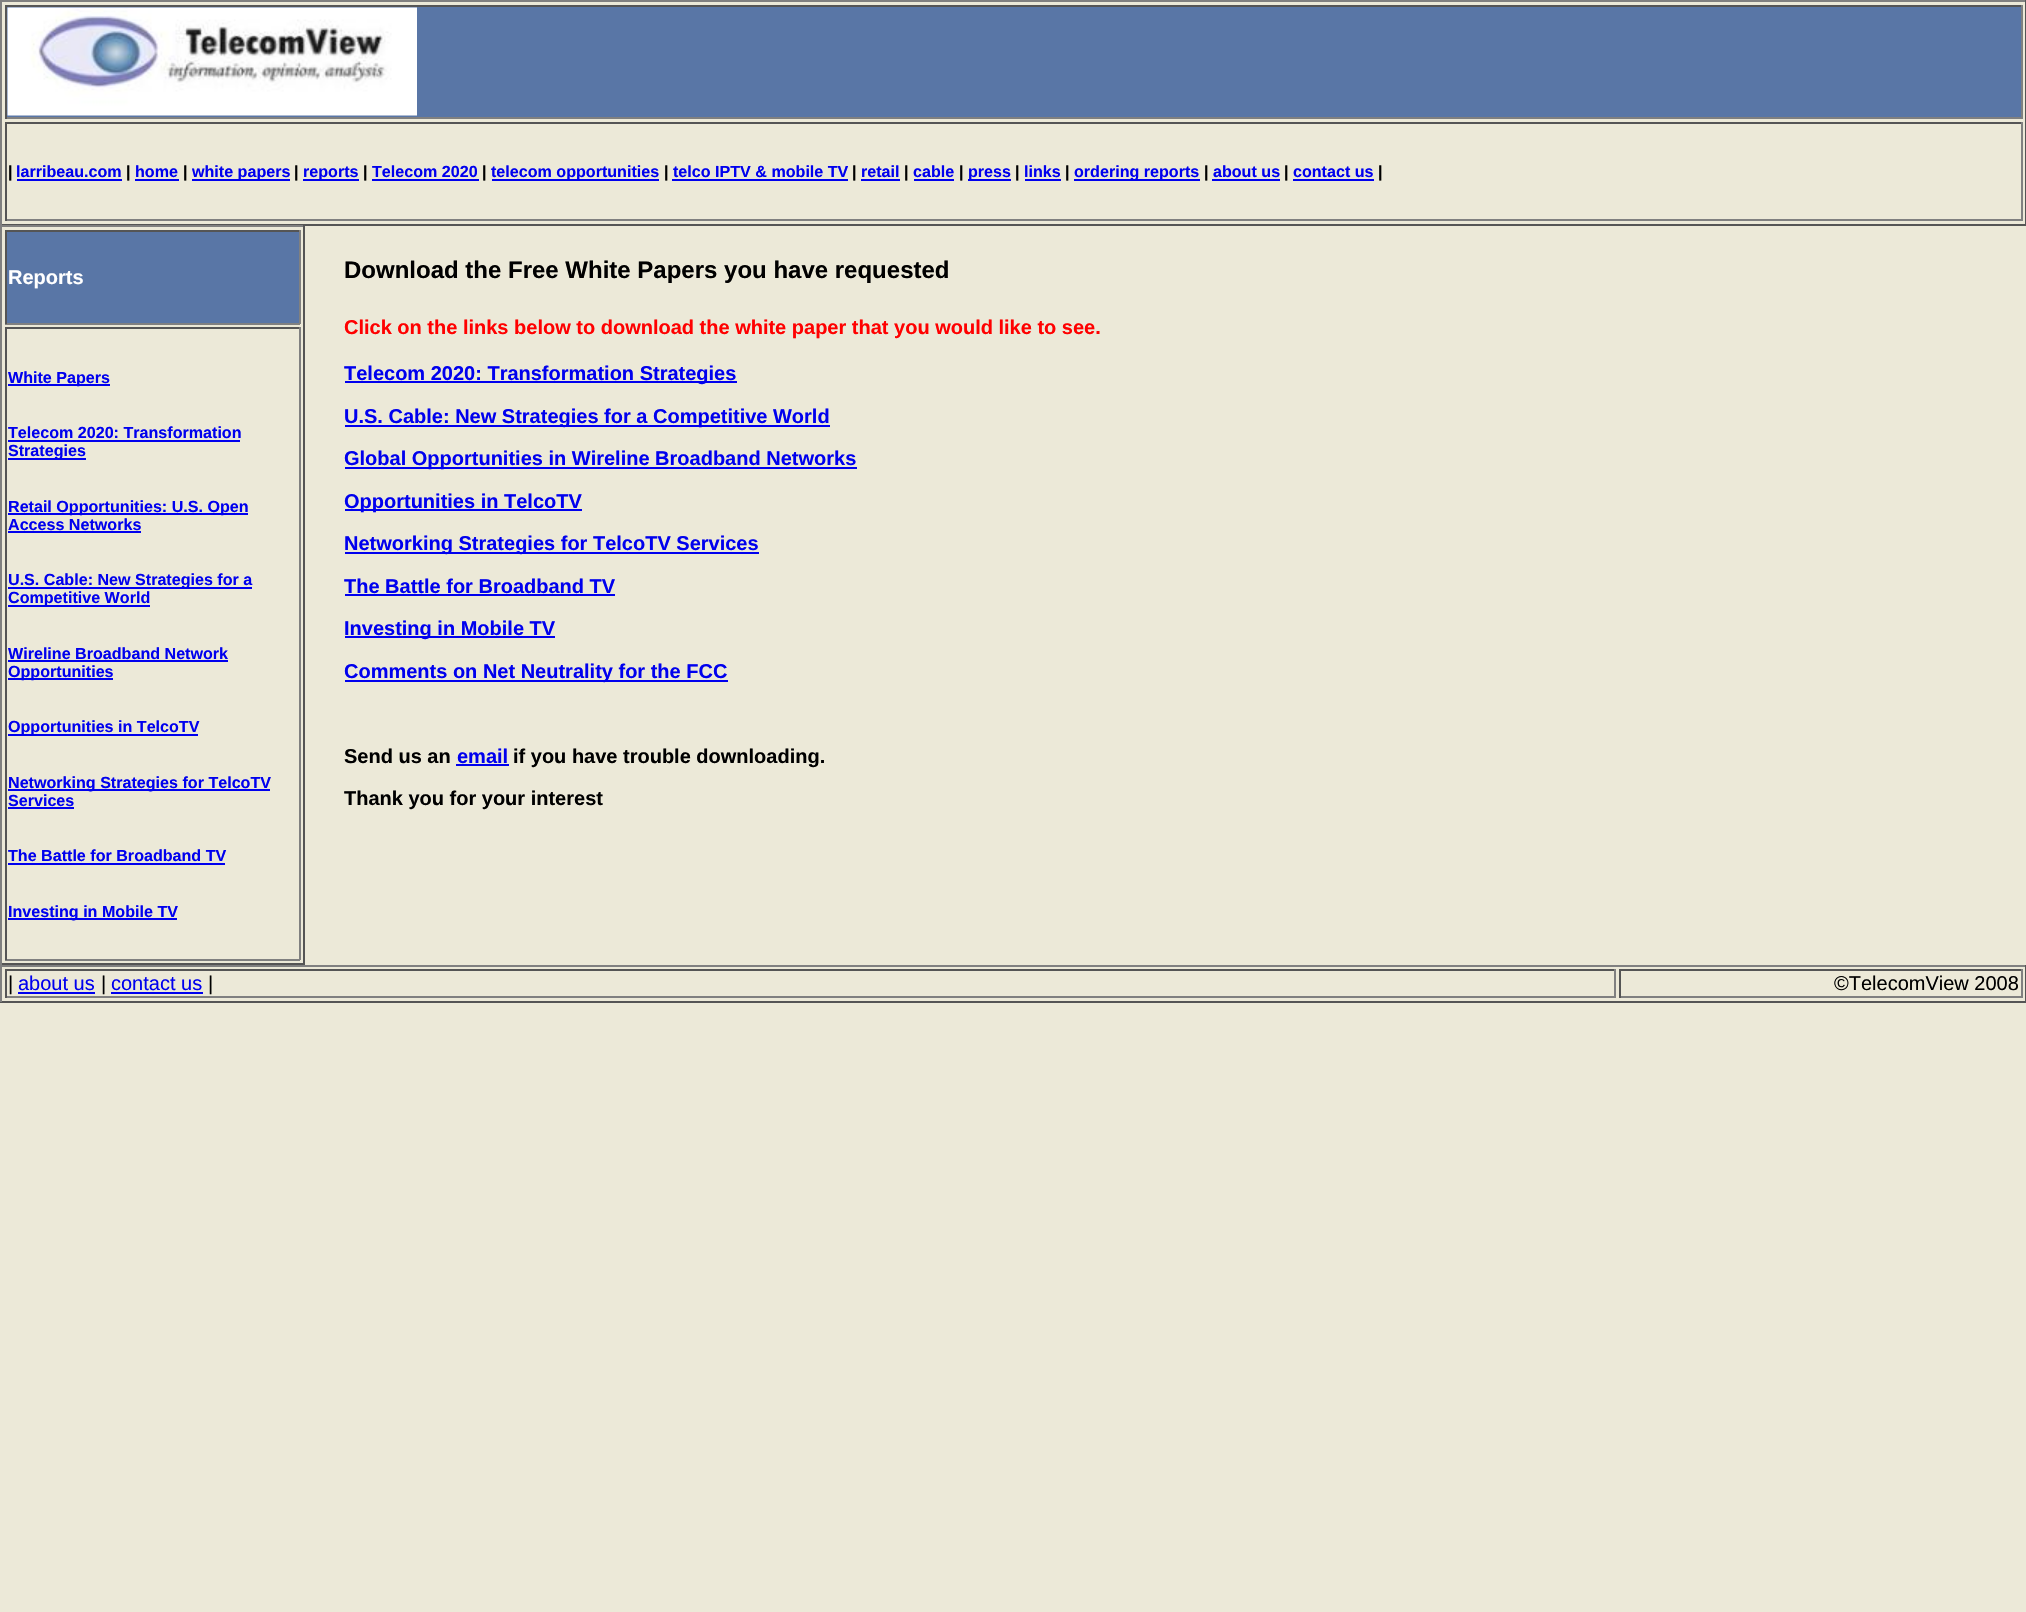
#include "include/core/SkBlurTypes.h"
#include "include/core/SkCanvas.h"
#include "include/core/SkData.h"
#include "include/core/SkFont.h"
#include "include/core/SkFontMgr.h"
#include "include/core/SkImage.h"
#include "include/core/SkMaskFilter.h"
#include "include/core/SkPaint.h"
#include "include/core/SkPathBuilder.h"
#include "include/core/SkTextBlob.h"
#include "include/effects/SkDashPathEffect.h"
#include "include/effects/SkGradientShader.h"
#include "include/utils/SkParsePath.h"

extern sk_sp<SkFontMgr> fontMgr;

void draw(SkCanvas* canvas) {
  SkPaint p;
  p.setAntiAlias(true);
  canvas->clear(SkColorSetRGB(236, 233, 216));
  p.setColor(SkColorSetRGB(128, 128, 128));
  canvas->drawRect(SkRect::MakeLTRB(0, 0, 2026, 2), p);
  p.setColor(SkColorSetRGB(85, 85, 85));
  canvas->drawRect(SkRect::MakeLTRB(2025, 0, 2026, 225), p);
  canvas->drawRect(SkRect::MakeLTRB(0, 224, 2026, 226), p);
  p.setColor(SkColorSetRGB(128, 128, 128));
  canvas->drawRect(SkRect::MakeLTRB(0, 0, 2, 225), p);
  p.setColor(SkColorSetRGB(89, 118, 166));
  canvas->drawRect(SkRect::MakeLTRB(7, 7, 2021, 117), p);
  p.setColor(SkColorSetRGB(85, 85, 85));
  canvas->drawRect(SkRect::MakeLTRB(5, 5, 2022, 7), p);
  p.setColor(SkColorSetRGB(128, 128, 128));
  canvas->drawRect(SkRect::MakeLTRB(2021, 5, 2023, 119), p);
  canvas->drawRect(SkRect::MakeLTRB(5, 117, 2022, 119), p);
  p.setColor(SkColorSetRGB(85, 85, 85));
  canvas->drawRect(SkRect::MakeLTRB(5, 5, 7, 119), p);
  canvas->drawImageRect(SkImages::DeferredFromEncodedData(SkData::MakeFromFileName("images/1.png")), SkRect::MakeLTRB(7, 7, 417, 116), SkSamplingOptions());
  canvas->drawRect(SkRect::MakeLTRB(5, 122, 2022, 124), p);
  p.setColor(SkColorSetRGB(128, 128, 128));
  canvas->drawRect(SkRect::MakeLTRB(2021, 122, 2023, 221), p);
  canvas->drawRect(SkRect::MakeLTRB(5, 219, 2022, 221), p);
  p.setColor(SkColorSetRGB(85, 85, 85));
  canvas->drawRect(SkRect::MakeLTRB(5, 122, 7, 221), p);
  p.setColor(SkColorSetRGB(0, 0, 238));
  canvas->drawRect(SkRect::MakeLTRB(17, 179, 122, 181), p);
  canvas->drawRect(SkRect::MakeLTRB(135, 179, 179, 181), p);
  canvas->drawRect(SkRect::MakeLTRB(192, 179, 290, 181), p);
  canvas->drawRect(SkRect::MakeLTRB(303, 179, 359, 181), p);
  canvas->drawRect(SkRect::MakeLTRB(372, 179, 479, 181), p);
  canvas->drawRect(SkRect::MakeLTRB(492, 179, 659, 181), p);
  canvas->drawRect(SkRect::MakeLTRB(672, 179, 848, 181), p);
  canvas->drawRect(SkRect::MakeLTRB(861, 179, 900, 181), p);
  canvas->drawRect(SkRect::MakeLTRB(914, 179, 954, 181), p);
  canvas->drawRect(SkRect::MakeLTRB(968, 179, 1011, 181), p);
  canvas->drawRect(SkRect::MakeLTRB(1025, 179, 1061, 181), p);
  canvas->drawRect(SkRect::MakeLTRB(1074, 179, 1200, 181), p);
  canvas->drawRect(SkRect::MakeLTRB(1212, 179, 1280, 181), p);
  canvas->drawRect(SkRect::MakeLTRB(1293, 179, 1374, 181), p);
  p.setColor(SkColorSetRGB(128, 128, 128));
  canvas->drawRect(SkRect::MakeLTRB(0, 225, 305, 227), p);
  p.setColor(SkColorSetRGB(85, 85, 85));
  canvas->drawRect(SkRect::MakeLTRB(303, 225, 305, 965), p);
  canvas->drawRect(SkRect::MakeLTRB(0, 963, 305, 965), p);
  p.setColor(SkColorSetRGB(128, 128, 128));
  canvas->drawRect(SkRect::MakeLTRB(0, 225, 2, 965), p);
  p.setColor(SkColorSetRGB(89, 118, 166));
  canvas->drawRect(SkRect::MakeLTRB(7, 232, 299, 323), p);
  p.setColor(SkColorSetRGB(85, 85, 85));
  canvas->drawRect(SkRect::MakeLTRB(5, 230, 300, 232), p);
  p.setColor(SkColorSetRGB(128, 128, 128));
  canvas->drawRect(SkRect::MakeLTRB(299, 230, 301, 324), p);
  canvas->drawRect(SkRect::MakeLTRB(5, 323, 300, 325), p);
  p.setColor(SkColorSetRGB(85, 85, 85));
  canvas->drawRect(SkRect::MakeLTRB(5, 230, 7, 324), p);
  canvas->drawRect(SkRect::MakeLTRB(5, 327, 300, 329), p);
  p.setColor(SkColorSetRGB(128, 128, 128));
  canvas->drawRect(SkRect::MakeLTRB(299, 327, 301, 960), p);
  canvas->drawRect(SkRect::MakeLTRB(5, 959, 300, 961), p);
  p.setColor(SkColorSetRGB(85, 85, 85));
  canvas->drawRect(SkRect::MakeLTRB(5, 327, 7, 960), p);
  p.setColor(SkColorSetRGB(0, 0, 238));
  canvas->drawRect(SkRect::MakeLTRB(8, 384, 110, 386), p);
  canvas->drawRect(SkRect::MakeLTRB(8, 440, 240, 442), p);
  canvas->drawRect(SkRect::MakeLTRB(8, 458, 86, 460), p);
  canvas->drawRect(SkRect::MakeLTRB(8, 513, 248, 515), p);
  canvas->drawRect(SkRect::MakeLTRB(8, 531, 141, 533), p);
  canvas->drawRect(SkRect::MakeLTRB(8, 587, 252, 589), p);
  canvas->drawRect(SkRect::MakeLTRB(8, 605, 150, 607), p);
  canvas->drawRect(SkRect::MakeLTRB(8, 660, 228, 662), p);
  canvas->drawRect(SkRect::MakeLTRB(8, 678, 113, 680), p);
  canvas->drawRect(SkRect::MakeLTRB(8, 734, 198, 736), p);
  canvas->drawRect(SkRect::MakeLTRB(8, 789, 270, 791), p);
  canvas->drawRect(SkRect::MakeLTRB(8, 807, 74, 809), p);
  canvas->drawRect(SkRect::MakeLTRB(8, 863, 225, 865), p);
  canvas->drawRect(SkRect::MakeLTRB(8, 918, 177, 920), p);
  canvas->drawRect(SkRect::MakeLTRB(345, 381, 737, 383), p);
  canvas->drawRect(SkRect::MakeLTRB(345, 425, 830, 427), p);
  canvas->drawRect(SkRect::MakeLTRB(345, 467, 857, 469), p);
  canvas->drawRect(SkRect::MakeLTRB(345, 509, 582, 511), p);
  canvas->drawRect(SkRect::MakeLTRB(345, 552, 759, 554), p);
  canvas->drawRect(SkRect::MakeLTRB(345, 594, 615, 596), p);
  canvas->drawRect(SkRect::MakeLTRB(345, 636, 555, 638), p);
  canvas->drawRect(SkRect::MakeLTRB(345, 680, 728, 682), p);
  canvas->drawRect(SkRect::MakeLTRB(456, 764, 509, 766), p);
  p.setColor(SkColorSetRGB(128, 128, 128));
  canvas->drawRect(SkRect::MakeLTRB(0, 965, 2026, 967), p);
  p.setColor(SkColorSetRGB(85, 85, 85));
  canvas->drawRect(SkRect::MakeLTRB(2025, 965, 2026, 1002), p);
  canvas->drawRect(SkRect::MakeLTRB(0, 1001, 2026, 1003), p);
  p.setColor(SkColorSetRGB(128, 128, 128));
  canvas->drawRect(SkRect::MakeLTRB(0, 965, 2, 1002), p);
  p.setColor(SkColorSetRGB(85, 85, 85));
  canvas->drawRect(SkRect::MakeLTRB(5, 969, 1616, 971), p);
  p.setColor(SkColorSetRGB(128, 128, 128));
  canvas->drawRect(SkRect::MakeLTRB(1614, 969, 1616, 998), p);
  canvas->drawRect(SkRect::MakeLTRB(5, 996, 1616, 998), p);
  p.setColor(SkColorSetRGB(85, 85, 85));
  canvas->drawRect(SkRect::MakeLTRB(5, 969, 7, 998), p);
  p.setColor(SkColorSetRGB(0, 0, 238));
  canvas->drawRect(SkRect::MakeLTRB(18, 992, 95, 994), p);
  canvas->drawRect(SkRect::MakeLTRB(111, 992, 203, 994), p);
  p.setColor(SkColorSetRGB(85, 85, 85));
  canvas->drawRect(SkRect::MakeLTRB(1619, 969, 2022, 971), p);
  p.setColor(SkColorSetRGB(128, 128, 128));
  canvas->drawRect(SkRect::MakeLTRB(2021, 969, 2023, 998), p);
  canvas->drawRect(SkRect::MakeLTRB(1619, 996, 2022, 998), p);
  p.setColor(SkColorSetRGB(85, 85, 85));
  canvas->drawRect(SkRect::MakeLTRB(1619, 969, 1621, 998), p);
  SkFont font1(fontMgr->matchFamilyStyle("Liberation Sans", SkFontStyle::Bold()), 16.1f);
  font1.setSubpixel(true);
  p.setColor(SK_ColorBLACK);
  canvas->drawString("|", 8, 177, font1, p);
  p.setColor(SkColorSetRGB(0, 0, 238));
  canvas->drawString("larribeau.com", 16, 177, font1, p);
  p.setColor(SK_ColorBLACK);
  canvas->drawString("|", 126, 177, font1, p);
  p.setColor(SkColorSetRGB(0, 0, 238));
  canvas->drawString("home", 135, 177, font1, p);
  p.setColor(SK_ColorBLACK);
  canvas->drawString("|", 183, 177, font1, p);
  p.setColor(SkColorSetRGB(0, 0, 238));
  canvas->drawString("white papers", 192, 177, font1, p);
  p.setColor(SK_ColorBLACK);
  canvas->drawString("|", 294, 177, font1, p);
  p.setColor(SkColorSetRGB(0, 0, 238));
  canvas->drawString("reports", 303, 177, font1, p);
  p.setColor(SK_ColorBLACK);
  canvas->drawString("|", 363, 177, font1, p);
  p.setColor(SkColorSetRGB(0, 0, 238));
  canvas->drawString("Telecom 2020", 372, 177, font1, p);
  p.setColor(SK_ColorBLACK);
  canvas->drawString("|", 482, 177, font1, p);
  p.setColor(SkColorSetRGB(0, 0, 238));
  canvas->drawString("telecom opportunities", 491, 177, font1, p);
  p.setColor(SK_ColorBLACK);
  canvas->drawString("|", 664, 177, font1, p);
  p.setColor(SkColorSetRGB(0, 0, 238));
  canvas->drawString("telco IPTV & mobile TV", 673, 177, font1, p);
  p.setColor(SK_ColorBLACK);
  canvas->drawString("|", 852, 177, font1, p);
  p.setColor(SkColorSetRGB(0, 0, 238));
  canvas->drawString("retail", 861, 177, font1, p);
  p.setColor(SK_ColorBLACK);
  canvas->drawString("|", 904, 177, font1, p);
  p.setColor(SkColorSetRGB(0, 0, 238));
  canvas->drawString("cable", 913, 177, font1, p);
  p.setColor(SK_ColorBLACK);
  canvas->drawString("|", 959, 177, font1, p);
  p.setColor(SkColorSetRGB(0, 0, 238));
  canvas->drawString("press", 968, 177, font1, p);
  p.setColor(SK_ColorBLACK);
  canvas->drawString("|", 1015, 177, font1, p);
  p.setColor(SkColorSetRGB(0, 0, 238));
  canvas->drawString("links", 1024, 177, font1, p);
  p.setColor(SK_ColorBLACK);
  canvas->drawString("|", 1065, 177, font1, p);
  p.setColor(SkColorSetRGB(0, 0, 238));
  canvas->drawString("ordering reports", 1074, 177, font1, p);
  p.setColor(SK_ColorBLACK);
  canvas->drawString("|", 1204, 177, font1, p);
  p.setColor(SkColorSetRGB(0, 0, 238));
  canvas->drawString("about us", 1213, 177, font1, p);
  p.setColor(SK_ColorBLACK);
  canvas->drawString("|", 1284, 177, font1, p);
  p.setColor(SkColorSetRGB(0, 0, 238));
  canvas->drawString("contact us", 1293, 177, font1, p);
  p.setColor(SK_ColorBLACK);
  canvas->drawString("|", 1378, 177, font1, p);
  SkFont font2(fontMgr->matchFamilyStyle("Liberation Sans", SkFontStyle::Bold()), 20);
  font2.setSubpixel(true);
  p.setColor(SK_ColorWHITE);
  canvas->drawString("Reports", 8, 284, font2, p);
  p.setColor(SkColorSetRGB(0, 0, 238));
  canvas->drawString("White Papers", 8, 383, font1, p);
  canvas->drawString("Telecom 2020: Transformation", 8, 438, font1, p);
  canvas->drawString("Strategies", 8, 456, font1, p);
  canvas->drawString("Retail Opportunities: U.S. Open", 8, 512, font1, p);
  canvas->drawString("Access Networks", 8, 530, font1, p);
  canvas->drawString("U.S. Cable: New Strategies for a", 8, 585, font1, p);
  canvas->drawString("Competitive World", 8, 603, font1, p);
  canvas->drawString("Wireline Broadband Network", 8, 659, font1, p);
  canvas->drawString("Opportunities", 8, 677, font1, p);
  canvas->drawString("Opportunities in TelcoTV", 8, 732, font1, p);
  canvas->drawString("Networking Strategies for TelcoTV", 8, 788, font1, p);
  canvas->drawString("Services", 8, 806, font1, p);
  canvas->drawString("The Battle for Broadband TV", 8, 861, font1, p);
  canvas->drawString("Investing in Mobile TV", 8, 917, font1, p);
  SkFont font3(fontMgr->matchFamilyStyle("Liberation Sans", SkFontStyle::Bold()), 24);
  font3.setSubpixel(true);
  p.setColor(SK_ColorBLACK);
  canvas->drawString("Download the Free White Papers you have requested", 344, 278, font3, p);
  p.setColor(SkColorSetRGB(255, 0, 0));
  canvas->drawString("Click on the links below to download the white paper that you would like to see.", 344, 334, font2, p);
  p.setColor(SkColorSetRGB(0, 0, 238));
  canvas->drawString("Telecom 2020: Transformation Strategies", 344, 380, font2, p);
  canvas->drawString("U.S. Cable: New Strategies for a Competitive World", 344, 423, font2, p);
  canvas->drawString("Global Opportunities in Wireline Broadband Networks", 344, 465, font2, p);
  canvas->drawString("Opportunities in TelcoTV", 344, 508, font2, p);
  canvas->drawString("Networking Strategies for TelcoTV Services", 344, 550, font2, p);
  canvas->drawString("The Battle for Broadband TV", 344, 593, font2, p);
  canvas->drawString("Investing in Mobile TV", 344, 635, font2, p);
  canvas->drawString("Comments on Net Neutrality for the FCC", 344, 678, font2, p);
  p.setColor(SK_ColorBLACK);
  canvas->drawString("Send us an", 344, 763, font2, p);
  p.setColor(SkColorSetRGB(0, 0, 238));
  canvas->drawString("email", 457, 763, font2, p);
  p.setColor(SK_ColorBLACK);
  canvas->drawString("if you have trouble downloading.", 513, 763, font2, p);
  canvas->drawString("Thank you for your interest", 344, 805, font2, p);
  SkFont font4(fontMgr->matchFamilyStyle("Liberation Sans", SkFontStyle::Normal()), 20);
  font4.setSubpixel(true);
  canvas->drawString("|", 8, 990, font4, p);
  p.setColor(SkColorSetRGB(0, 0, 238));
  canvas->drawString("about us", 18, 990, font4, p);
  p.setColor(SK_ColorBLACK);
  canvas->drawString("|", 101, 990, font4, p);
  p.setColor(SkColorSetRGB(0, 0, 238));
  canvas->drawString("contact us", 111, 990, font4, p);
  p.setColor(SK_ColorBLACK);
  canvas->drawString("|", 208, 990, font4, p);
  canvas->drawString("©TelecomView 2008", 1834, 990, font4, p);
}
